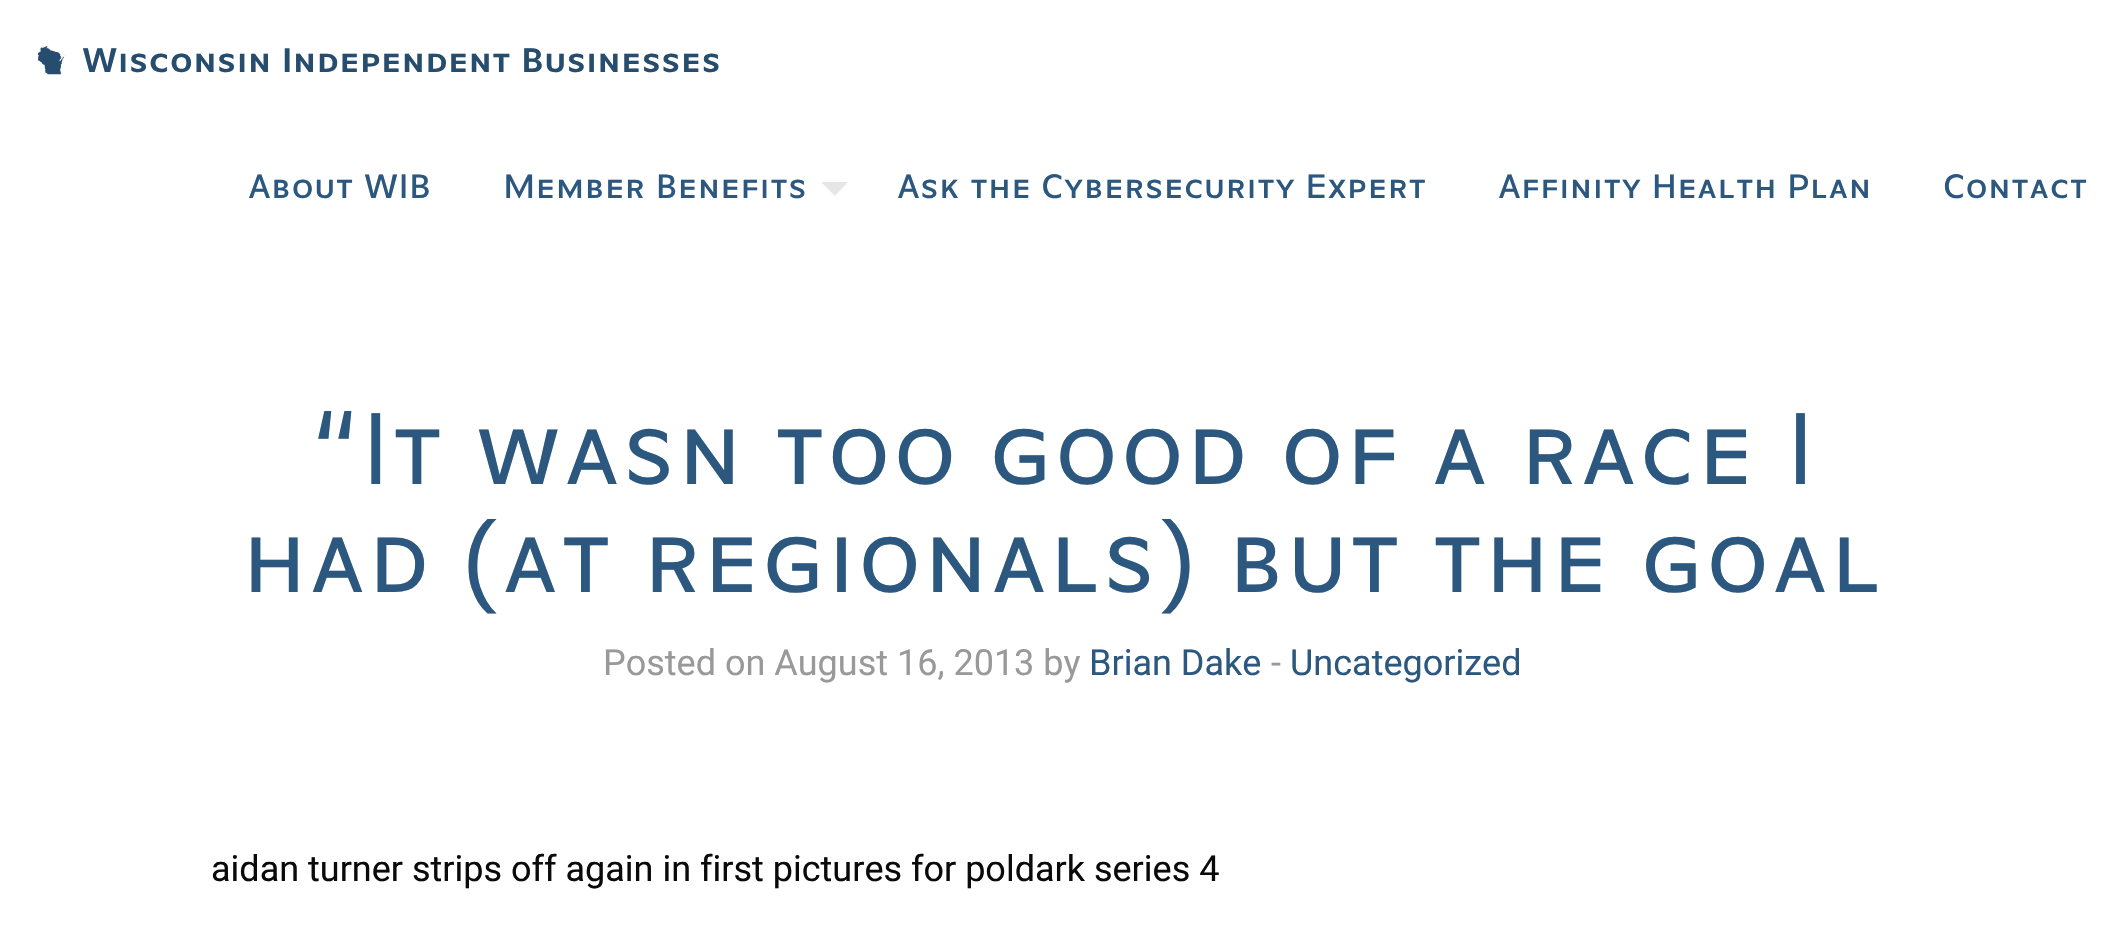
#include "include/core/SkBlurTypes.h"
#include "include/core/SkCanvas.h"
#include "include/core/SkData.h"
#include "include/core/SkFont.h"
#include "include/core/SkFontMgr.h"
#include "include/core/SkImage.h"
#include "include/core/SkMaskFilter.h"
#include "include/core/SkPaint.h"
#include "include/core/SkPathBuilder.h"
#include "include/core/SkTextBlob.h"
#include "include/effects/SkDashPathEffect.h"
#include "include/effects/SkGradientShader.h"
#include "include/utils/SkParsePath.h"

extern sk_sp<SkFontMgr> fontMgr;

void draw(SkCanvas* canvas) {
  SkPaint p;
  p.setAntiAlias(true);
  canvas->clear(SK_ColorWHITE);
  canvas->drawImageRect(SkImages::DeferredFromEncodedData(SkData::MakeFromFileName("images/1.png")), SkRect::MakeLTRB(37, 45, 65, 75), SkSamplingOptions());
  p.setColor(SkColorSetRGB(230, 230, 230));
  canvas->drawPath(SkPathBuilder().moveTo(821, 182).lineTo(848, 182).lineTo(835, 196).close().detach(), p);
  SkFont font1(fontMgr->matchFamilyStyle("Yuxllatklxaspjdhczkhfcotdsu", SkFontStyle(600, SkFontStyle::kNormal_Width, SkFontStyle::kUpright_Slant)), 36);
  font1.setSubpixel(true);
  p.setColor(SkColorSetRGB(38, 76, 110));
  canvas->drawString("Wisconsin Independent Businesses", 82, 72, font1, p);
  SkFont font2(fontMgr->matchFamilyStyle("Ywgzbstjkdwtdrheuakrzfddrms", SkFontStyle(500, SkFontStyle::kNormal_Width, SkFontStyle::kUpright_Slant)), 36);
  font2.setSubpixel(true);
  p.setColor(SkColorSetRGB(44, 88, 128));
  canvas->drawString("About WIB", 248, 198, font2, p);
  canvas->drawString("Member Benefits", 503, 198, font2, p);
  canvas->drawString("Ask the Cybersecurity Expert", 897, 198, font2, p);
  canvas->drawString("Affinity Health Plan", 1498, 198, font2, p);
  canvas->drawString("Contact", 1943, 198, font2, p);
  SkFont font3(fontMgr->matchFamilyStyle("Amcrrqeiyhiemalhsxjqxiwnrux", SkFontStyle(500, SkFontStyle::kNormal_Width, SkFontStyle::kUpright_Slant)), 108);
  font3.setSubpixel(true);
  canvas->drawString("“It wasn too good of a race I", 309, 484, font3, p);
  canvas->drawString("had (at regionals) but the goal", 241, 592, font3, p);
  SkFont font4(fontMgr->matchFamilyStyle("Roboto", SkFontStyle::Normal()), 36);
  font4.setSubpixel(true);
  p.setColor(SkColorSetRGB(153, 153, 153));
  canvas->drawString("Posted on August 16, 2013 by", 603, 675, font4, p);
  p.setColor(SkColorSetRGB(44, 88, 128));
  canvas->drawString("Brian Dake", 1089, 675, font4, p);
  p.setColor(SkColorSetRGB(153, 153, 153));
  canvas->drawString("-", 1271, 675, font4, p);
  p.setColor(SkColorSetRGB(44, 88, 128));
  canvas->drawString("Uncategorized", 1290, 675, font4, p);
  p.setColor(SkColorSetRGB(10, 10, 10));
  canvas->drawString("aidan turner strips off again in first pictures for poldark series 4", 211, 881, font4, p);
}
